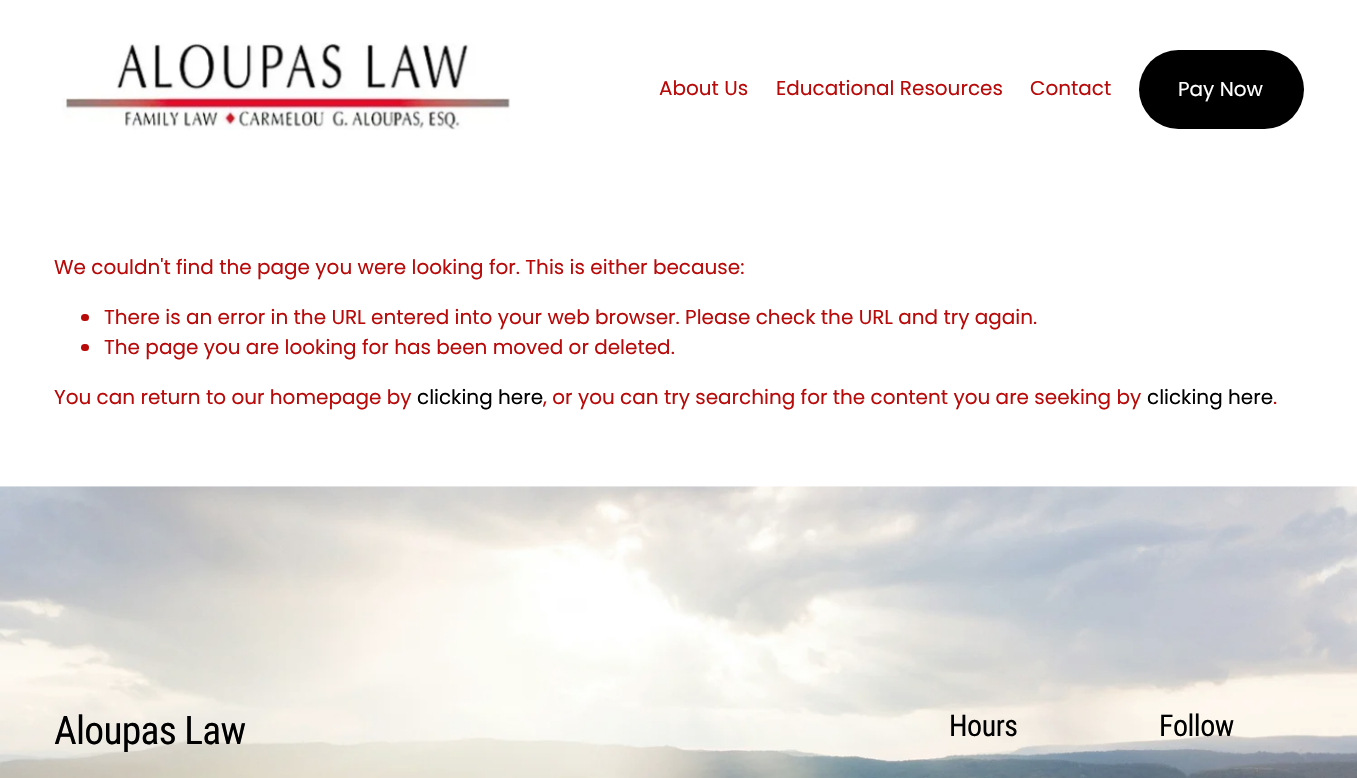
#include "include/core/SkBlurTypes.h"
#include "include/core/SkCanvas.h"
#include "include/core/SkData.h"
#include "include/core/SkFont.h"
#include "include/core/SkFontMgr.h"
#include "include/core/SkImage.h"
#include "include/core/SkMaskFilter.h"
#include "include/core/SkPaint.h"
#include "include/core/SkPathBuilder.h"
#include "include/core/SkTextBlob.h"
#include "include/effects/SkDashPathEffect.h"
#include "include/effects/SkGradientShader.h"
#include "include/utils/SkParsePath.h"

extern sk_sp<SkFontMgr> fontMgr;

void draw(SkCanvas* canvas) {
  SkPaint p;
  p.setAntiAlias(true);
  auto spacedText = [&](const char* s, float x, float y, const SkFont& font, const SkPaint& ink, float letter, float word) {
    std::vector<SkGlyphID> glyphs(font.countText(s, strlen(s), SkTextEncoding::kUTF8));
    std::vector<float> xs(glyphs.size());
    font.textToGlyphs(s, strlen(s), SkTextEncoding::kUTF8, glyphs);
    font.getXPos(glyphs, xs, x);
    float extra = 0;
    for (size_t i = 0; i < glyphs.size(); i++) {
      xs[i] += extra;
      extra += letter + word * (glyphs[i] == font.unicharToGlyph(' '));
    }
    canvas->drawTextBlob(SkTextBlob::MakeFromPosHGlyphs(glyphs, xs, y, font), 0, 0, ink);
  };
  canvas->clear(SK_ColorWHITE);
  canvas->drawImageRect(SkImages::DeferredFromEncodedData(SkData::MakeFromFileName("images/1.png")), SkRect::MakeLTRB(62, 43, 510, 130), SkSamplingOptions());
  p.setColor(SK_ColorBLACK);
  canvas->drawRoundRect(SkRect::MakeLTRB(1139, 50, 1304, 129), 39.5f, 39.5f, p);
  p.setColor(SkColorSetRGB(185, 10, 10));
  canvas->drawRoundRect(SkRect::MakeLTRB(81, 314, 89, 321), 3.5f, 3.5f, p);
  canvas->drawRoundRect(SkRect::MakeLTRB(81, 344, 89, 351), 3.5f, 3.5f, p);
  canvas->drawImageRect(SkImages::DeferredFromEncodedData(SkData::MakeFromFileName("images/2.png")), SkRect::MakeLTRB(0, 486, 1357, 778), SkSamplingOptions());
  SkFont font1(fontMgr->matchFamilyStyle("Poppins", SkFontStyle::Normal()), 20);
  font1.setSubpixel(true);
  canvas->drawString("About Us", 659, 95, font1, p);
  canvas->drawString("Educational Resources", 776, 95, font1, p);
  canvas->drawString("Contact", 1030, 95, font1, p);
  p.setColor(SK_ColorWHITE);
  canvas->drawString("Pay Now", 1178, 96, font1, p);
  p.setColor(SkColorSetRGB(185, 10, 10));
  canvas->drawString("We couldn't find the page you were looking for. This is either because:", 54, 274, font1, p);
  canvas->drawString("There is an error in the URL entered into your web browser. Please check the URL and try again.", 104, 324, font1, p);
  canvas->drawString("The page you are looking for has been moved or deleted.", 104, 354, font1, p);
  canvas->drawString("You can return to our homepage by", 54, 404, font1, p);
  p.setColor(SK_ColorBLACK);
  canvas->drawString("clicking here", 417, 404, font1, p);
  p.setColor(SkColorSetRGB(185, 10, 10));
  canvas->drawString(", or you can try searching for the content you are seeking by", 543, 404, font1, p);
  p.setColor(SK_ColorBLACK);
  canvas->drawString("clicking here", 1147, 404, font1, p);
  p.setColor(SkColorSetRGB(185, 10, 10));
  canvas->drawString(".", 1273, 404, font1, p);
  SkFont font2(fontMgr->matchFamilyStyle("Roboto Condensed", SkFontStyle::Normal()), 39.5f);
  font2.setSubpixel(true);
  p.setColor(SK_ColorBLACK);
  spacedText("Aloupas Law", 54, 744, font2, p, -0.75f, 0);
  SkFont font3(fontMgr->matchFamilyStyle("Roboto Condensed", SkFontStyle::Normal()), 30);
  font3.setSubpixel(true);
  spacedText("Hours", 949, 736, font3, p, -0.5f, 0);
  spacedText("Follow", 1159, 736, font3, p, -0.5f, 0);
}
